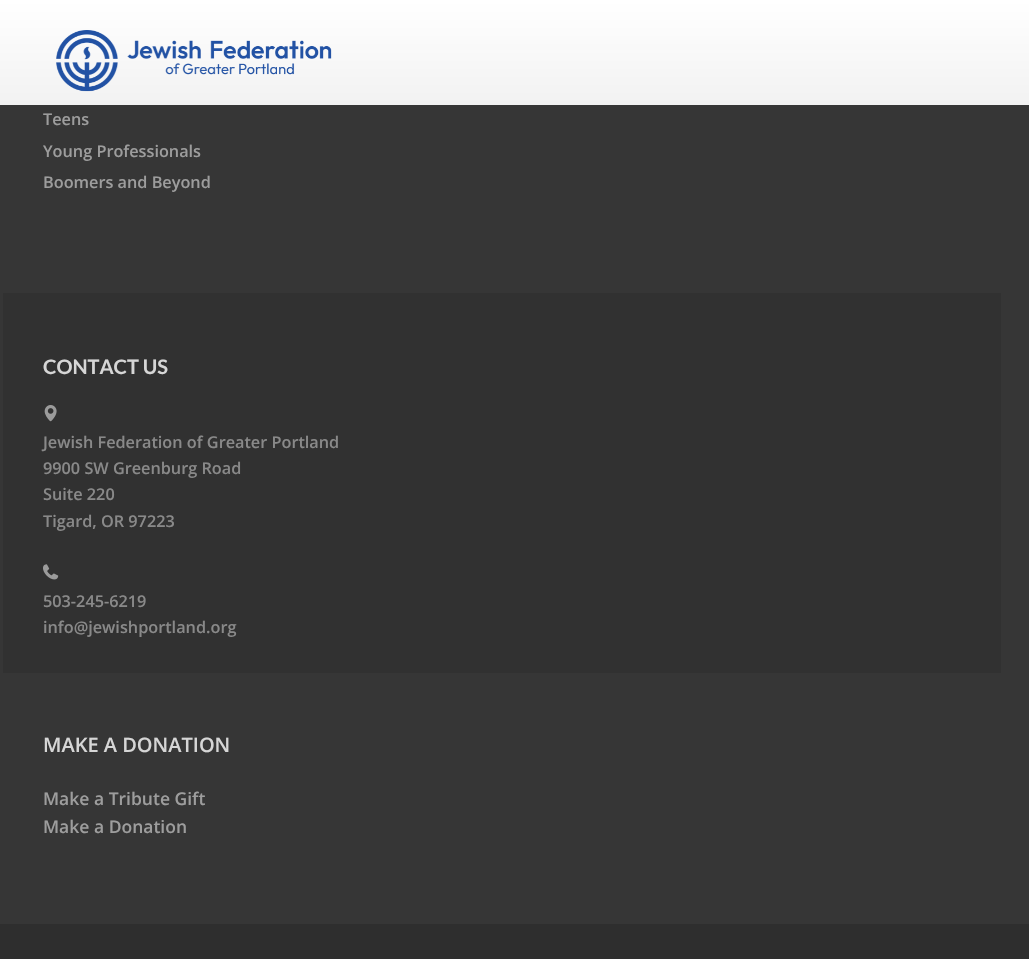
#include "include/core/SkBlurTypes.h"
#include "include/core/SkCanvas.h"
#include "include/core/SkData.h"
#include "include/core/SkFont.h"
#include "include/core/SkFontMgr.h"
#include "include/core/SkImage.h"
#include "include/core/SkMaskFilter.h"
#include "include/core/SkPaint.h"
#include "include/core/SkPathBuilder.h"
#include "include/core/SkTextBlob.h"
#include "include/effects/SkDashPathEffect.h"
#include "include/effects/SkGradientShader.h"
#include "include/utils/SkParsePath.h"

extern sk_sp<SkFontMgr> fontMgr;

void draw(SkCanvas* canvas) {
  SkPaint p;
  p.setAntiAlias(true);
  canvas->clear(SkColorSetRGB(54, 54, 54));
  {
    const SkColor colors[] = {SK_ColorWHITE, SkColorSetRGB(242, 242, 242)};
    const float stops[] = {0, 1};
    const SkPoint ends[] = {{515, 0}, {515, 105}};
    p.setShader(SkGradientShader::MakeLinear(ends, colors, stops, 2, SkTileMode::kClamp));
    p.setAlpha(255);
  }
  canvas->drawRect(SkRect::MakeLTRB(0, 0, 1029, 105), p);
  canvas->drawImageRect(SkImages::DeferredFromEncodedData(SkData::MakeFromFileName("images/1.png")), SkRect::MakeLTRB(56, 30, 332, 92), SkSamplingOptions());
  p.setShader(nullptr);
  p.setColor(SkColorSetRGB(49, 49, 49));
  canvas->drawRect(SkRect::MakeLTRB(3, 293, 1001, 673), p);
  canvas->drawImageRect(SkImages::DeferredFromEncodedData(SkData::MakeFromFileName("images/2.png")), SkRect::MakeLTRB(44, 405, 57, 422), SkSamplingOptions());
  canvas->drawImageRect(SkImages::DeferredFromEncodedData(SkData::MakeFromFileName("images/3.png")), SkRect::MakeLTRB(43, 564, 59, 580), SkSamplingOptions());
  p.setColor(SkColorSetRGB(46, 46, 46));
  canvas->drawRect(SkRect::MakeLTRB(0, 924, 1029, 959), p);
  SkFont font1(fontMgr->matchFamilyStyle("Open Sans", SkFontStyle(600, SkFontStyle::kNormal_Width, SkFontStyle::kUpright_Slant)), 16.25f);
  font1.setSubpixel(true);
  p.setColor(SkColorSetRGB(157, 157, 157));
  canvas->drawString("Teens", 43, 125, font1, p);
  canvas->drawString("Young Professionals", 43, 157, font1, p);
  canvas->drawString("Boomers and Beyond", 43, 188, font1, p);
  SkFont font2(fontMgr->matchFamilyStyle("Lato", SkFontStyle::Bold()), 20);
  font2.setSubpixel(true);
  p.setColor(SkColorSetRGB(214, 214, 214));
  canvas->drawString("CONTACT US", 43, 374, font2, p);
  p.setColor(SkColorSetRGB(137, 137, 137));
  canvas->drawString("Jewish Federation of Greater Portland", 43, 448, font1, p);
  canvas->drawString("9900 SW Greenburg Road", 43, 474, font1, p);
  canvas->drawString("Suite 220", 43, 500, font1, p);
  canvas->drawString("Tigard, OR 97223", 43, 527, font1, p);
  canvas->drawString("503-245-6219", 43, 607, font1, p);
  canvas->drawString("info@jewishportland.org", 43, 633, font1, p);
  SkFont font3(fontMgr->matchFamilyStyle("Open Sans", SkFontStyle(600, SkFontStyle::kNormal_Width, SkFontStyle::kUpright_Slant)), 20);
  font3.setSubpixel(true);
  p.setColor(SkColorSetRGB(214, 214, 214));
  canvas->drawString("MAKE A DONATION", 43, 752, font3, p);
  SkFont font4(fontMgr->matchFamilyStyle("Open Sans", SkFontStyle(600, SkFontStyle::kNormal_Width, SkFontStyle::kUpright_Slant)), 17.5f);
  font4.setSubpixel(true);
  p.setColor(SkColorSetRGB(157, 157, 157));
  canvas->drawString("Make a Tribute Gift", 43, 805, font4, p);
  canvas->drawString("Make a Donation", 43, 833, font4, p);
}
